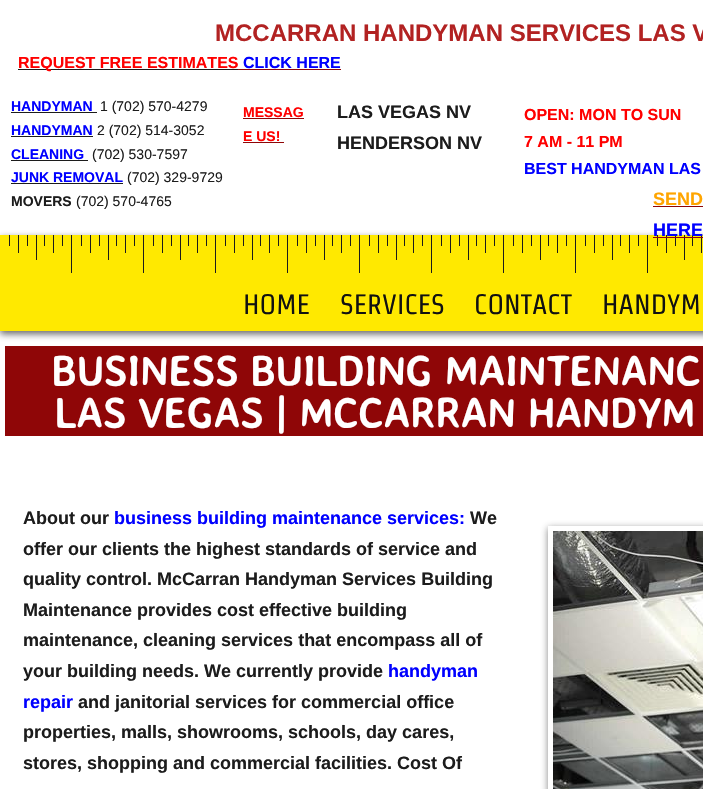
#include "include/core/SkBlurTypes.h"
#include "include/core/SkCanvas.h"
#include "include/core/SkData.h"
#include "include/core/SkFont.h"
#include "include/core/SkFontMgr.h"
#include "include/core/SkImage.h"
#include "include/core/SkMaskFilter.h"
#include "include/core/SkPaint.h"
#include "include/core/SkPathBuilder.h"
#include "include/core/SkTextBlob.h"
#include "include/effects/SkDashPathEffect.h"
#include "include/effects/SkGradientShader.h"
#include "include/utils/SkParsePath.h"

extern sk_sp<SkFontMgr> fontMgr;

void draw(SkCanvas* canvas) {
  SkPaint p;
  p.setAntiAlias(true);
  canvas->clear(SK_ColorWHITE);
  p.setColor(SkColorSetRGB(28, 28, 28));
  canvas->drawRect(SkRect::MakeLTRB(18, 69, 238, 70), p);
  p.setColor(SkColorSetRGB(143, 6, 7));
  canvas->drawRect(SkRect::MakeLTRB(238, 69, 341, 70), p);
  p.setColor(SkColorSetRGB(28, 28, 28));
  canvas->drawRect(SkRect::MakeLTRB(11, 112, 97, 113), p);
  canvas->drawRect(SkRect::MakeLTRB(11, 136, 93, 137), p);
  canvas->drawRect(SkRect::MakeLTRB(11, 160, 88, 161), p);
  canvas->drawRect(SkRect::MakeLTRB(11, 183, 123, 184), p);
  p.setColor(SkColorSetRGB(143, 6, 7));
  canvas->drawRect(SkRect::MakeLTRB(243, 118, 304, 119), p);
  canvas->drawRect(SkRect::MakeLTRB(243, 142, 284, 143), p);
  canvas->drawRect(SkRect::MakeLTRB(653, 206, 703, 207), p);
  p.setColor(SkColorSetARGB(191, 50, 50, 50));
  p.setMaskFilter(SkMaskFilter::MakeBlur(kNormal_SkBlurStyle, 3.5f));
  canvas->drawRect(SkRect::MakeLTRB(0, 238, 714, 334), p);
  p.setMaskFilter(nullptr);
  canvas->drawImageRect(SkImages::DeferredFromEncodedData(SkData::MakeFromFileName("images/1.png")), SkRect::MakeLTRB(0, 235, 703, 331), SkSamplingOptions());
  p.setColor(SkColorSetRGB(143, 6, 7));
  canvas->drawRect(SkRect::MakeLTRB(653, 237, 703, 238), p);
  canvas->drawRect(SkRect::MakeLTRB(5, 346, 703, 436), p);
  canvas->save();
  canvas->clipPath(SkPathBuilder(SkPathFillType::kEvenOdd).moveTo(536, 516).lineTo(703, 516).lineTo(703, 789).lineTo(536, 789).close().moveTo(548, 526).lineTo(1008, 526).lineTo(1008, 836).lineTo(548, 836).close().detach(), true);
  p.setColor(SkColorSetARGB(153, 50, 50, 50));
  p.setMaskFilter(SkMaskFilter::MakeBlur(kNormal_SkBlurStyle, 3.5f));
  canvas->drawRect(SkRect::MakeLTRB(548, 528, 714, 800), p);
  p.setMaskFilter(nullptr);
  canvas->restore();
  canvas->drawImageRect(SkImages::DeferredFromEncodedData(SkData::MakeFromFileName("images/2.png")), SkRect::MakeLTRB(553, 531, 703, 789), SkSamplingOptions());
  SkFont font1(fontMgr->matchFamilyStyle("Liberation Sans", SkFontStyle::Bold()), 24);
  font1.setSubpixel(true);
  p.setColor(SkColorSetRGB(178, 34, 34));
  canvas->drawString("MCCARRAN HANDYMAN SERVICES LAS V", 215, 41, font1, p);
  SkFont font2(fontMgr->matchFamilyStyle("Liberation Sans", SkFontStyle::Bold()), 16);
  font2.setSubpixel(true);
  p.setColor(SkColorSetRGB(255, 0, 0));
  canvas->drawString("REQUEST FREE ESTIMATES", 18, 68, font2, p);
  p.setColor(SkColorSetRGB(0, 0, 255));
  canvas->drawString("CLICK HERE", 243, 68, font2, p);
  SkFont font3(fontMgr->matchFamilyStyle("Liberation Sans", SkFontStyle::Bold()), 14);
  font3.setSubpixel(true);
  canvas->drawString("HANDYMAN", 11, 111, font3, p);
  SkFont font4(fontMgr->matchFamilyStyle("Liberation Sans", SkFontStyle::Normal()), 14);
  font4.setSubpixel(true);
  p.setColor(SkColorSetRGB(28, 28, 28));
  canvas->drawString("1 (702) 570-4279", 100, 111, font4, p);
  p.setColor(SkColorSetRGB(0, 0, 255));
  canvas->drawString("HANDYMAN", 11, 135, font3, p);
  p.setColor(SkColorSetRGB(28, 28, 28));
  canvas->drawString("2 (702) 514-3052", 97, 135, font4, p);
  p.setColor(SkColorSetRGB(0, 0, 255));
  canvas->drawString("CLEANING", 11, 159, font3, p);
  p.setColor(SkColorSetRGB(28, 28, 28));
  canvas->drawString("(702) 530-7597", 92, 159, font4, p);
  p.setColor(SkColorSetRGB(0, 0, 255));
  canvas->drawString("JUNK REMOVAL", 11, 182, font3, p);
  p.setColor(SkColorSetRGB(28, 28, 28));
  canvas->drawString("(702) 329-9729", 127, 182, font4, p);
  canvas->drawString("MOVERS", 11, 206, font3, p);
  canvas->drawString("(702) 570-4765", 76, 206, font4, p);
  p.setColor(SkColorSetRGB(255, 0, 0));
  canvas->drawString("MESSAG", 243, 117, font3, p);
  canvas->drawString("E US!", 243, 141, font3, p);
  SkFont font5(fontMgr->matchFamilyStyle("Liberation Sans", SkFontStyle::Bold()), 18);
  font5.setSubpixel(true);
  p.setColor(SkColorSetRGB(28, 28, 28));
  canvas->drawString("LAS VEGAS NV", 337, 118, font5, p);
  canvas->drawString("HENDERSON NV", 337, 149, font5, p);
  p.setColor(SkColorSetRGB(255, 0, 0));
  canvas->drawString("OPEN: MON TO SUN", 524, 120, font2, p);
  canvas->drawString("7 AM - 11 PM", 524, 147, font2, p);
  p.setColor(SkColorSetRGB(0, 0, 255));
  canvas->drawString("BEST HANDYMAN LAS", 524, 174, font2, p);
  p.setColor(SkColorSetRGB(255, 165, 0));
  canvas->drawString("SEND", 653, 205, font5, p);
  p.setColor(SkColorSetRGB(0, 0, 255));
  canvas->drawString("HERE", 653, 236, font5, p);
  SkFont font6(fontMgr->matchFamilyStyle("Strait", SkFontStyle::Normal()), 28);
  font6.setSubpixel(true);
  p.setColor(SkColorSetRGB(17, 17, 17));
  canvas->drawString("HOME", 243, 314, font6, p);
  canvas->drawString("SERVICES", 340, 314, font6, p);
  canvas->drawString("CONTACT", 474, 314, font6, p);
  canvas->drawString("HANDYM", 602, 314, font6, p);
  SkFont font7(fontMgr->matchFamilyStyle("Averia Sans Libre", SkFontStyle::Bold()), 42);
  font7.setSubpixel(true);
  p.setColor(SK_ColorWHITE);
  canvas->drawString("BUSINESS BUILDING MAINTENANC", 51, 386, font7, p);
  canvas->drawString("LAS VEGAS | MCCARRAN HANDYM", 54, 428, font7, p);
  p.setColor(SkColorSetRGB(28, 28, 28));
  canvas->drawString("About our", 23, 524, font5, p);
  p.setColor(SkColorSetRGB(0, 0, 255));
  canvas->drawString("business building maintenance services:", 114, 524, font5, p);
  p.setColor(SkColorSetRGB(28, 28, 28));
  canvas->drawString("We", 470, 524, font5, p);
  canvas->drawString("offer our clients the highest standards of service and", 23, 555, font5, p);
  canvas->drawString("quality control. McCarran Handyman Services Building", 23, 585, font5, p);
  canvas->drawString("Maintenance provides cost effective building", 23, 616, font5, p);
  canvas->drawString("maintenance, cleaning services that encompass all of", 23, 646, font5, p);
  canvas->drawString("your building needs. We currently provide", 23, 677, font5, p);
  p.setColor(SkColorSetRGB(0, 0, 255));
  canvas->drawString("handyman", 388, 677, font5, p);
  canvas->drawString("repair", 23, 708, font5, p);
  p.setColor(SkColorSetRGB(28, 28, 28));
  canvas->drawString("and janitorial services for commercial office", 78, 708, font5, p);
  canvas->drawString("properties, malls, showrooms, schools, day cares,", 23, 738, font5, p);
  canvas->drawString("stores, shopping and commercial facilities. Cost Of", 23, 769, font5, p);
}
